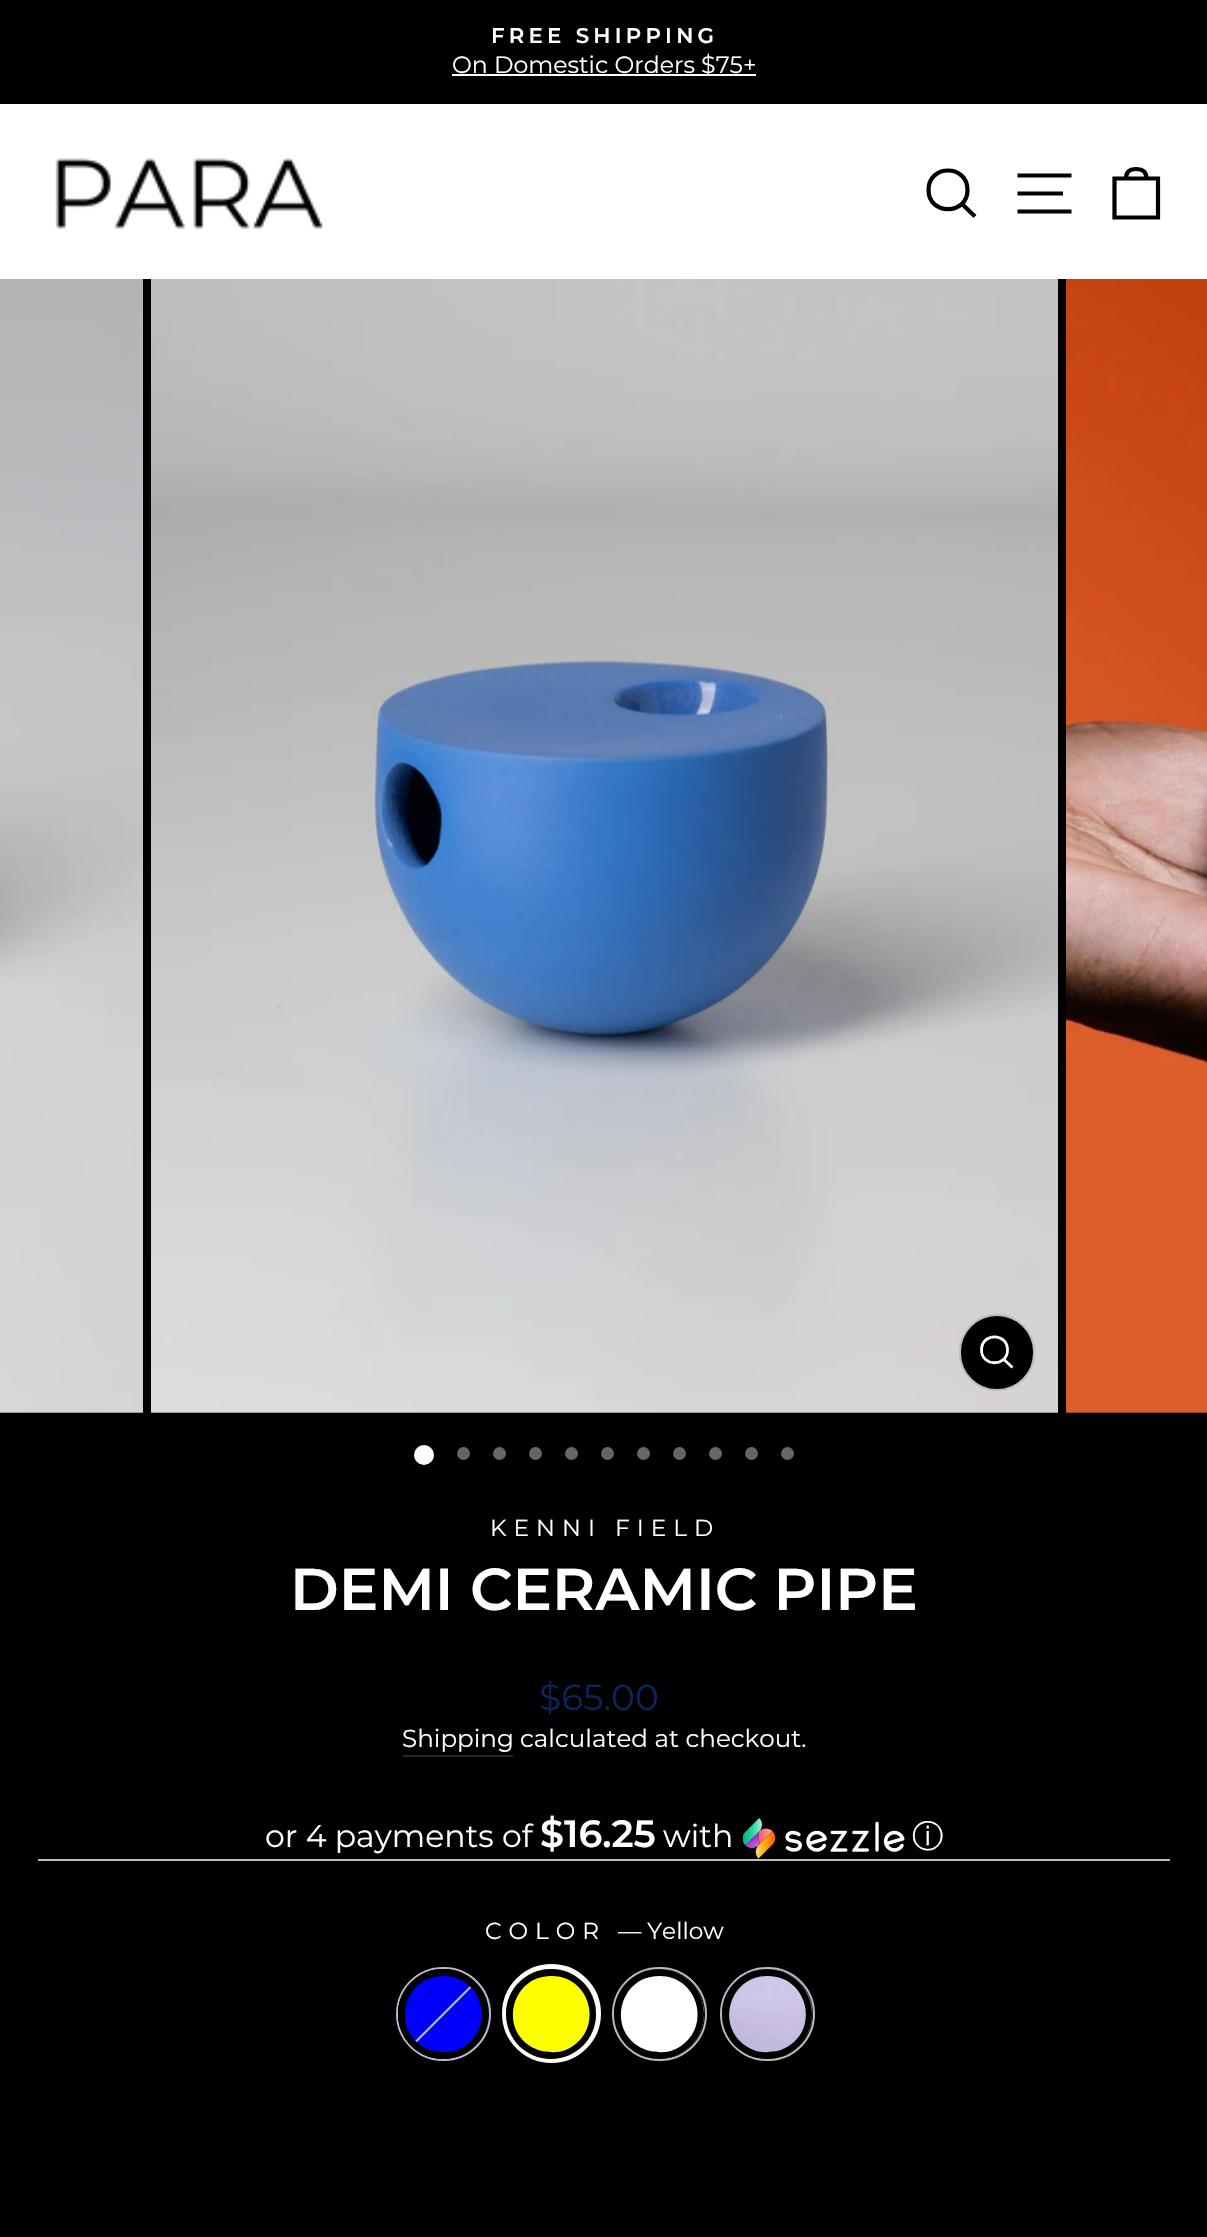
#include "include/core/SkBlurTypes.h"
#include "include/core/SkCanvas.h"
#include "include/core/SkData.h"
#include "include/core/SkFont.h"
#include "include/core/SkFontMgr.h"
#include "include/core/SkImage.h"
#include "include/core/SkMaskFilter.h"
#include "include/core/SkPaint.h"
#include "include/core/SkPathBuilder.h"
#include "include/core/SkTextBlob.h"
#include "include/effects/SkDashPathEffect.h"
#include "include/effects/SkGradientShader.h"
#include "include/utils/SkParsePath.h"

extern sk_sp<SkFontMgr> fontMgr;

void draw(SkCanvas* canvas) {
  SkPaint p;
  p.setAntiAlias(true);
  auto spacedText = [&](const char* s, float x, float y, const SkFont& font, const SkPaint& ink, float letter, float word) {
    std::vector<SkGlyphID> glyphs(font.countText(s, strlen(s), SkTextEncoding::kUTF8));
    std::vector<float> xs(glyphs.size());
    font.textToGlyphs(s, strlen(s), SkTextEncoding::kUTF8, glyphs);
    font.getXPos(glyphs, xs, x);
    float extra = 0;
    for (size_t i = 0; i < glyphs.size(); i++) {
      xs[i] += extra;
      extra += letter + word * (glyphs[i] == font.unicharToGlyph(' '));
    }
    canvas->drawTextBlob(SkTextBlob::MakeFromPosHGlyphs(glyphs, xs, y, font), 0, 0, ink);
  };
  canvas->clear(SK_ColorBLACK);
  p.setColor(SK_ColorWHITE);
  canvas->drawRect(SkRect::MakeLTRB(0, 104, 1207, 279), p);
  canvas->drawRect(SkRect::MakeLTRB(452, 74, 756, 76), p);
  canvas->drawImageRect(SkImages::DeferredFromEncodedData(SkData::MakeFromFileName("images/1.png")), SkRect::MakeLTRB(55, 158, 324, 229), SkSamplingOptions());
  p.setStyle(SkPaint::kStroke_Style);
  p.setStrokeWidth(4.2f);
  p.setColor(SK_ColorBLACK);
  canvas->drawPath(SkPathBuilder().moveTo(967.5f, 190).cubicTo(967.5f, 215.5f, 928.5f, 215.5f, 928.5f, 190).cubicTo(928.5f, 164, 967.5f, 164, 967.5f, 190).close().moveTo(975, 216.5f).lineTo(962, 204).detach(), p);
  canvas->drawPath(SkPathBuilder().moveTo(1017.5f, 175.5f).lineTo(1071.5f, 175.5f).moveTo(1017.5f, 193.5f).lineTo(1063, 193.5f).moveTo(1017.5f, 211.5f).lineTo(1071.5f, 211.5f).detach(), p);
  canvas->drawPath(SkPathBuilder().moveTo(1114.5f, 178.5f).lineTo(1158, 178.5f).lineTo(1158, 217.5f).lineTo(1114.5f, 217.5f).close().moveTo(1126, 178.5f).cubicTo(1126, 171, 1130.5f, 169, 1136, 169).cubicTo(1142, 169, 1146.5f, 171, 1146.5f, 178.5f).detach(), p);
  canvas->drawImageRect(SkImages::DeferredFromEncodedData(SkData::MakeFromFileName("images/2.png")), SkRect::MakeLTRB(0, 279, 143, 1413), SkSamplingOptions());
  canvas->drawImageRect(SkImages::DeferredFromEncodedData(SkData::MakeFromFileName("images/3.png")), SkRect::MakeLTRB(151, 279, 1058, 1413), SkSamplingOptions());
  p.setStyle(SkPaint::kFill_Style);
  canvas->drawRoundRect(SkRect::MakeLTRB(960, 1315, 1034, 1390), 37, 37, p);
  p.setStyle(SkPaint::kStroke_Style);
  p.setStrokeWidth(2);
  p.setColor(SkColorSetRGB(187, 187, 187));
  canvas->drawRoundRect(SkRect::MakeLTRB(960, 1315, 1034, 1390), 37, 37, p);
  p.setStrokeWidth(2.8f);
  p.setColor(SK_ColorWHITE);
  canvas->drawPath(SkPathBuilder().moveTo(1007.5f, 1350).cubicTo(1007.5f, 1367, 981.5f, 1367, 981.5f, 1350).cubicTo(981.5f, 1332.5f, 1007.5f, 1332.5f, 1007.5f, 1350).close().moveTo(1012.5f, 1367.5f).lineTo(1004, 1359.5f).detach(), p);
  canvas->drawImageRect(SkImages::DeferredFromEncodedData(SkData::MakeFromFileName("images/4.png")), SkRect::MakeLTRB(1066, 279, 1207, 1413), SkSamplingOptions());
  p.setStyle(SkPaint::kFill_Style);
  canvas->drawCircle(424, 1455, 10, p);
  p.setColor(SkColorSetRGB(102, 102, 102));
  canvas->drawCircle(463.5f, 1453.5f, 6.5f, p);
  canvas->drawCircle(499.5f, 1453.5f, 6.5f, p);
  canvas->drawCircle(535.5f, 1453.5f, 6.5f, p);
  canvas->drawCircle(571.5f, 1453.5f, 6.5f, p);
  canvas->drawCircle(607.5f, 1453.5f, 6.5f, p);
  canvas->drawCircle(643.5f, 1453.5f, 6.5f, p);
  canvas->drawCircle(679.5f, 1453.5f, 6.5f, p);
  canvas->drawCircle(715.5f, 1453.5f, 6.5f, p);
  canvas->drawCircle(751.5f, 1453.5f, 6.5f, p);
  canvas->drawCircle(787.5f, 1453.5f, 6.5f, p);
  p.setColor(SkColorSetRGB(38, 38, 38));
  canvas->drawRect(SkRect::MakeLTRB(403, 1755, 513, 1757), p);
  canvas->drawImageRect(SkImages::DeferredFromEncodedData(SkData::MakeFromFileName("images/5.png")), SkRect::MakeLTRB(743, 1818, 905, 1859), SkSamplingOptions());
  p.setColor(SkColorSetRGB(187, 187, 187));
  canvas->drawRect(SkRect::MakeLTRB(38, 1859, 1170, 1861), p);
  p.setStyle(SkPaint::kStroke_Style);
  p.setStrokeWidth(2);
  canvas->drawRoundRect(SkRect::MakeLTRB(397, 1968, 490, 2060), 46, 46, p);
  p.setStyle(SkPaint::kFill_Style);
  p.setColor(SkColorSetRGB(0, 0, 255));
  canvas->drawCircle(443, 2014, 45, p);
  p.setColor(SkColorSetRGB(187, 187, 187));
  canvas->drawPath(SkPathBuilder().moveTo(474, 1982).lineTo(476, 1983).lineTo(412, 2047).lineTo(411, 2045).close().detach(), p);
  p.setColor(SK_ColorBLACK);
  canvas->drawPath(SkPathBuilder(SkPathFillType::kEvenOdd).moveTo(443, 1969).cubicTo(418, 1969, 398, 1989, 398, 2014).cubicTo(398, 2039, 418, 2059, 443, 2059).cubicTo(468, 2059, 488, 2039, 488, 2014).cubicTo(488, 1989, 468, 1969, 443, 1969).close().moveTo(443, 1976).cubicTo(402, 1976, 390, 2033, 428, 2049).cubicTo(434, 2052, 437, 2051, 443, 2052).cubicTo(451, 2053, 459, 2050, 465, 2046).cubicTo(496, 2025, 481, 1976, 444, 1976).close().detach(), p);
  p.setStyle(SkPaint::kStroke_Style);
  p.setStrokeWidth(5);
  p.setColor(SK_ColorWHITE);
  canvas->drawCircle(551.5f, 2013.5f, 47, p);
  p.setStyle(SkPaint::kFill_Style);
  p.setColor(SkColorSetRGB(255, 255, 0));
  canvas->drawCircle(551, 2014, 45, p);
  p.setColor(SK_ColorBLACK);
  canvas->drawPath(SkPathBuilder(SkPathFillType::kEvenOdd).moveTo(551, 1969).cubicTo(526, 1969, 506, 1989, 506, 2014).cubicTo(506, 2039, 526, 2059, 551, 2059).cubicTo(576, 2059, 596, 2039, 596, 2014).cubicTo(596, 1989, 576, 1969, 551, 1969).close().moveTo(551, 1976).cubicTo(510, 1976, 498, 2033, 536, 2049).cubicTo(542, 2052, 545, 2051, 551, 2052).cubicTo(559, 2053, 567, 2050, 573, 2046).cubicTo(604, 2025, 589, 1976, 552, 1976).close().detach(), p);
  p.setStyle(SkPaint::kStroke_Style);
  p.setStrokeWidth(2);
  p.setColor(SkColorSetRGB(187, 187, 187));
  canvas->drawRoundRect(SkRect::MakeLTRB(613, 1968, 706, 2060), 46, 46, p);
  p.setStyle(SkPaint::kFill_Style);
  p.setColor(SK_ColorWHITE);
  canvas->drawCircle(659, 2014, 45, p);
  p.setColor(SK_ColorBLACK);
  canvas->drawPath(SkPathBuilder(SkPathFillType::kEvenOdd).moveTo(659, 1969).cubicTo(634, 1969, 614, 1989, 614, 2014).cubicTo(614, 2039, 634, 2059, 659, 2059).cubicTo(684, 2059, 704, 2039, 704, 2014).cubicTo(704, 1989, 684, 1969, 659, 1969).close().moveTo(659, 1976).cubicTo(618, 1976, 606, 2033, 644, 2049).cubicTo(650, 2052, 653, 2051, 659, 2052).cubicTo(667, 2053, 675, 2050, 681, 2046).cubicTo(712, 2025, 697, 1976, 660, 1976).close().detach(), p);
  p.setStyle(SkPaint::kStroke_Style);
  p.setColor(SkColorSetRGB(187, 187, 187));
  canvas->drawRoundRect(SkRect::MakeLTRB(721, 1968, 814, 2060), 46, 46, p);
  canvas->drawImageRect(SkImages::DeferredFromEncodedData(SkData::MakeFromFileName("images/6.png")), SkRect::MakeLTRB(722, 1968, 813, 2059), SkSamplingOptions());
  p.setStyle(SkPaint::kFill_Style);
  p.setColor(SK_ColorBLACK);
  canvas->drawPath(SkPathBuilder(SkPathFillType::kEvenOdd).moveTo(767, 1969).cubicTo(742, 1969, 722, 1989, 722, 2014).cubicTo(722, 2039, 742, 2059, 767, 2059).cubicTo(792, 2059, 812, 2039, 812, 2014).cubicTo(812, 1989, 792, 1969, 767, 1969).close().moveTo(767, 1976).cubicTo(730, 1976, 715, 2025, 746, 2046).cubicTo(752, 2050, 760, 2053, 768, 2052).cubicTo(774, 2051, 777, 2052, 783, 2049).cubicTo(821, 2033, 809, 1976, 768, 1976).close().detach(), p);
  SkFont font1(fontMgr->matchFamilyStyle("Montserrat", SkFontStyle(600, SkFontStyle::kNormal_Width, SkFontStyle::kUpright_Slant)), 21.25f);
  font1.setSubpixel(true);
  p.setColor(SK_ColorWHITE);
  spacedText("FREE SHIPPING", 491, 43, font1, p, 4.25f, 0);
  SkFont font2(fontMgr->matchFamilyStyle("Montserrat", SkFontStyle::Normal()), 23.6f);
  font2.setSubpixel(true);
  canvas->drawString("On Domestic Orders $75+", 452, 73, font2, p);
  SkFont font3(fontMgr->matchFamilyStyle("Montserrat", SkFontStyle::Normal()), 23.25f);
  font3.setSubpixel(true);
  spacedText("KENNI FIELD", 490, 1536, font3, p, 7, 0);
  SkFont font4(fontMgr->matchFamilyStyle("Montserrat", SkFontStyle(600, SkFontStyle::kNormal_Width, SkFontStyle::kUpright_Slant)), 59.1f);
  font4.setSubpixel(true);
  canvas->drawString("DEMI CERAMIC PIPE", 290, 1610, font4, p);
  SkFont font5(fontMgr->matchFamilyStyle("Montserrat", SkFontStyle::Normal()), 36);
  font5.setSubpixel(true);
  p.setColor(SkColorSetRGB(9, 38, 90));
  canvas->drawString("$65.00", 539, 1710, font5, p);
  SkFont font6(fontMgr->matchFamilyStyle("Montserrat", SkFontStyle::Normal()), 24.6f);
  font6.setSubpixel(true);
  p.setColor(SK_ColorWHITE);
  canvas->drawString("Shipping", 402, 1747, font6, p);
  canvas->drawString("calculated at checkout.", 520, 1747, font6, p);
  SkFont font7(fontMgr->matchFamilyStyle("Montserrat", SkFontStyle::Normal()), 31.5f);
  font7.setSubpixel(true);
  canvas->drawString("or 4 payments of", 265, 1847, font7, p);
  SkFont font8(fontMgr->matchFamilyStyle("Montserrat", SkFontStyle(600, SkFontStyle::kNormal_Width, SkFontStyle::kUpright_Slant)), 38);
  font8.setSubpixel(true);
  canvas->drawString("$16.25", 540, 1847, font8, p);
  canvas->drawString("with", 663, 1847, font7, p);
  SkFont font9(fontMgr->matchFamilyStyle("WenQuanYi Zen Hei", SkFontStyle(500, SkFontStyle::kNormal_Width, SkFontStyle::kUpright_Slant)), 31.5f);
  font9.setSubpixel(true);
  canvas->drawString("ⓘ", 912, 1847, font9, p);
  spacedText("COLOR", 485, 1939, font3, p, 7, 0);
  canvas->drawString("— Yellow", 618, 1939, font3, p);
}
